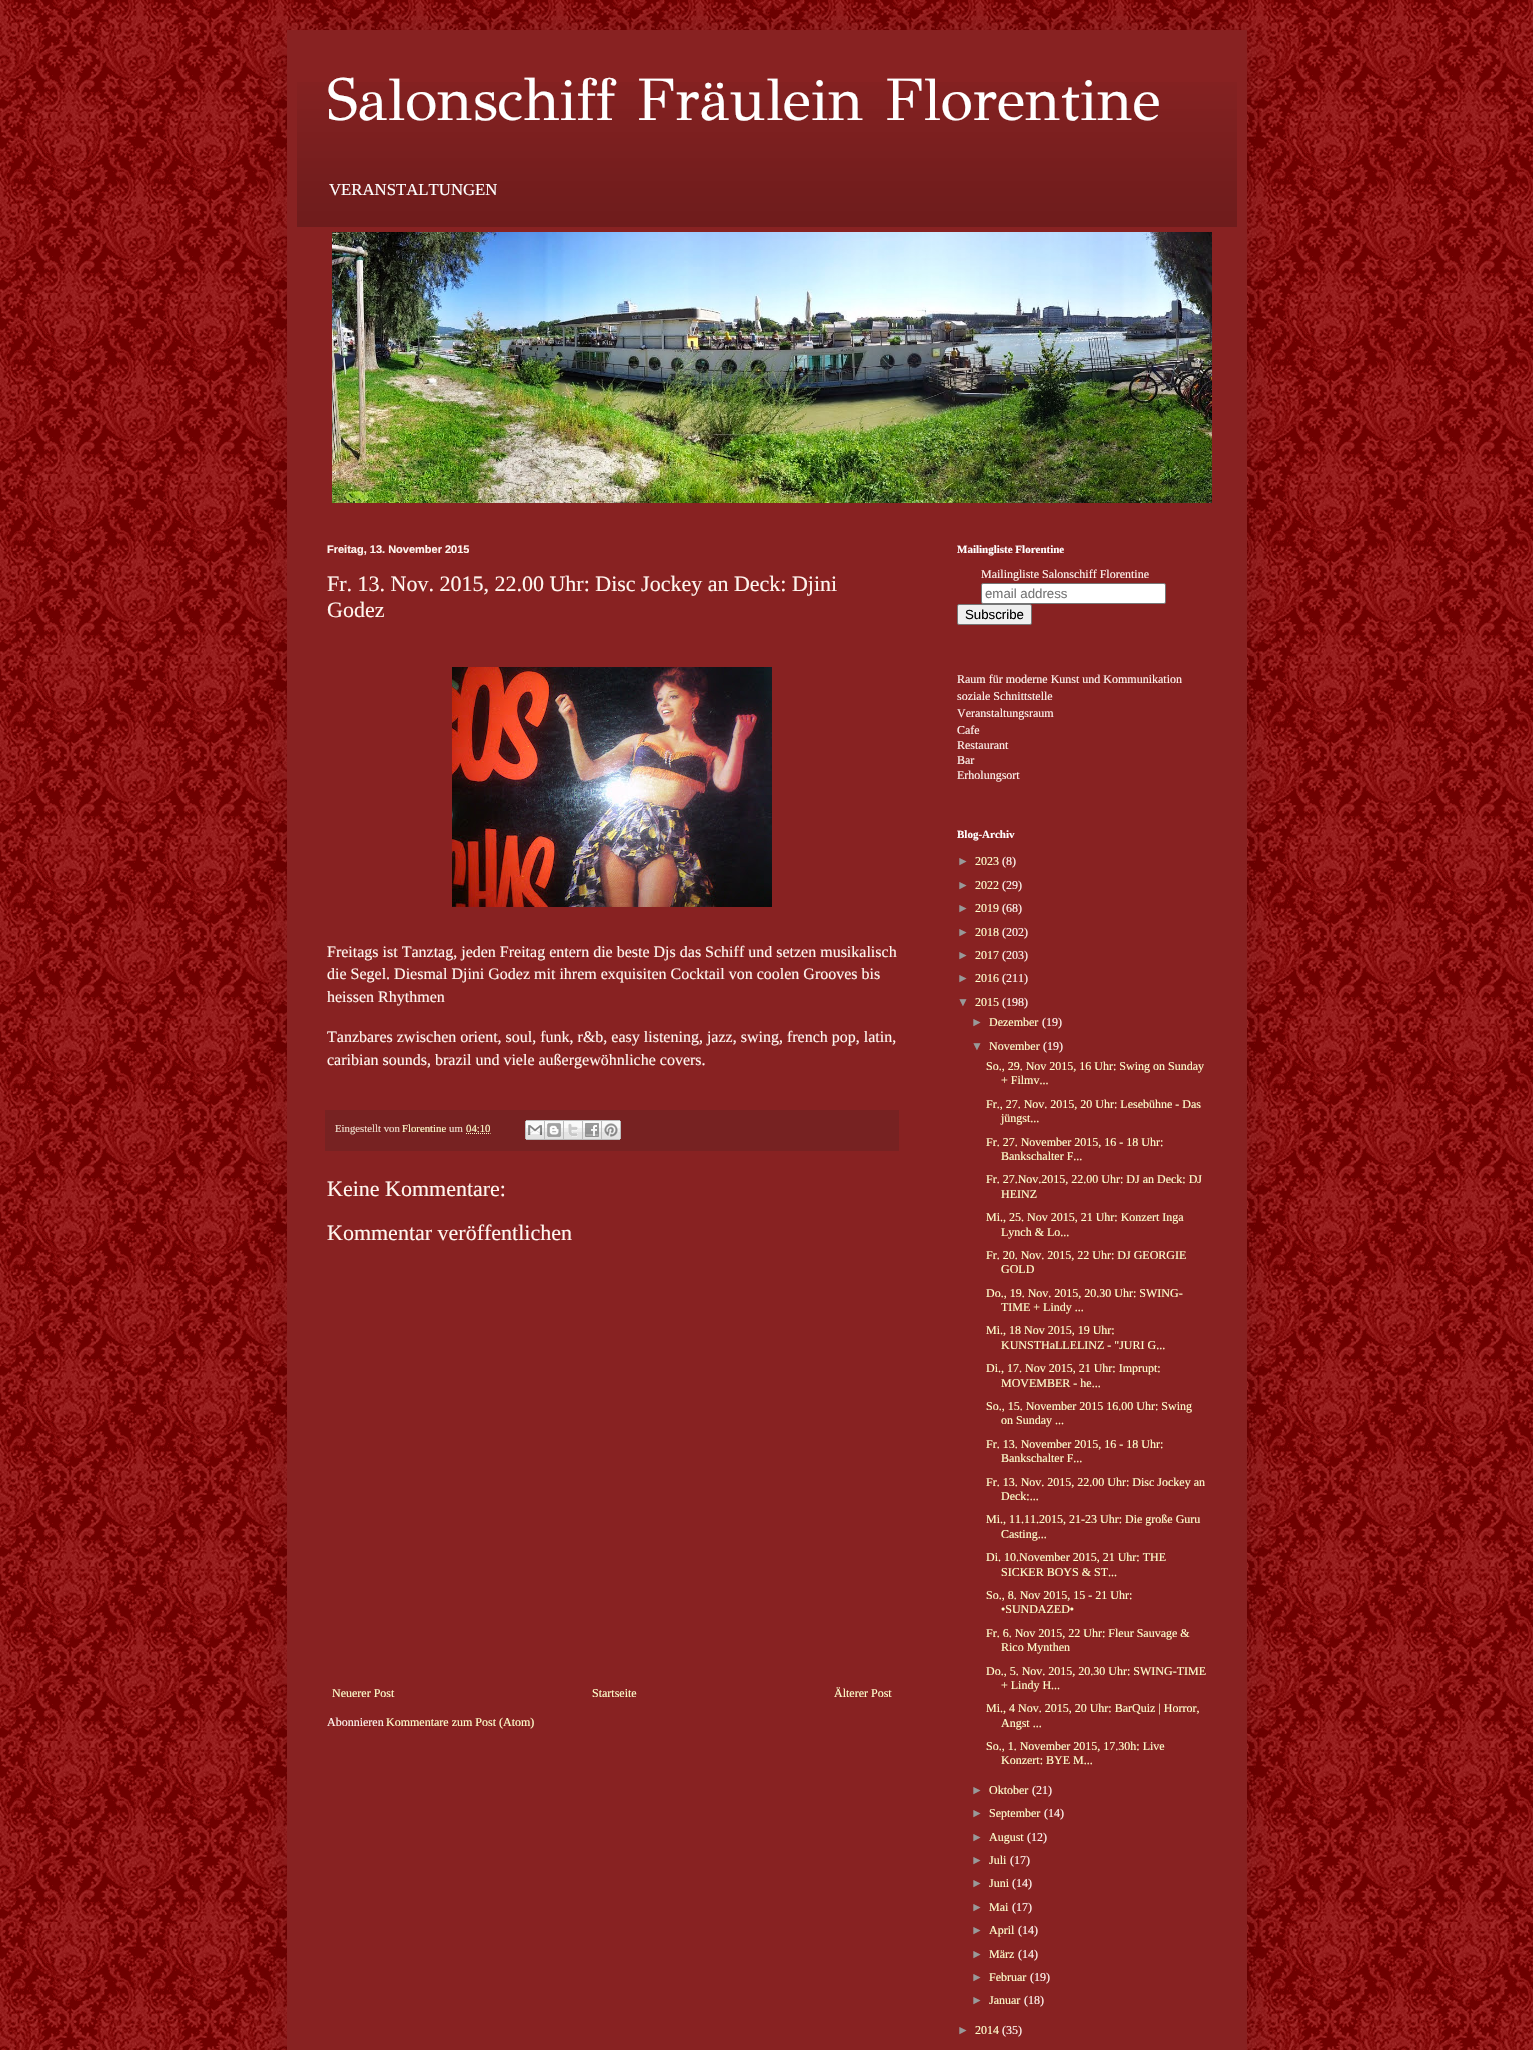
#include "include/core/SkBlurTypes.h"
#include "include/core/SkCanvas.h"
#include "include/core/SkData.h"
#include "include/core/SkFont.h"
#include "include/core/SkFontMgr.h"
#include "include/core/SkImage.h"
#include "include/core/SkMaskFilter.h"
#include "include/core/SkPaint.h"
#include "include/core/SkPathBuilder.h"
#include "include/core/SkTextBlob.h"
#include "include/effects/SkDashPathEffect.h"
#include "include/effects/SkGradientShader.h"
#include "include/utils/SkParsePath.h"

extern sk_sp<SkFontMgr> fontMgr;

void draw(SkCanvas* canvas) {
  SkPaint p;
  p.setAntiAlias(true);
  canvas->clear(SK_ColorWHITE);
  canvas->drawImageRect(SkImages::DeferredFromEncodedData(SkData::MakeFromFileName("images/1.png")), SkRect::MakeLTRB(0, 0, 1533, 2050), SkSamplingOptions());
  p.setColor(SkColorSetARGB(38, 0, 0, 0));
  p.setMaskFilter(SkMaskFilter::MakeBlur(kNormal_SkBlurStyle, 20));
  canvas->drawRect(SkRect::MakeLTRB(287, 30, 1247, 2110), p);
  p.setMaskFilter(nullptr);
  p.setColor(SkColorSetRGB(136, 34, 34));
  canvas->drawRect(SkRect::MakeLTRB(287, 30, 1247, 2050), p);
  canvas->drawImageRect(SkImages::DeferredFromEncodedData(SkData::MakeFromFileName("images/2.png")), SkRect::MakeLTRB(297, 82, 1237, 227), SkSamplingOptions());
  canvas->drawImageRect(SkImages::DeferredFromEncodedData(SkData::MakeFromFileName("images/3.png")), SkRect::MakeLTRB(332, 232, 1212, 503), SkSamplingOptions());
  canvas->drawImageRect(SkImages::DeferredFromEncodedData(SkData::MakeFromFileName("images/4.png")), SkRect::MakeLTRB(452, 667, 772, 907), SkSamplingOptions());
  p.setColor(SkColorSetRGB(119, 34, 34));
  canvas->drawRect(SkRect::MakeLTRB(325, 1110, 899, 1151), p);
  p.setStyle(SkPaint::kStroke_Style);
  p.setStrokeWidth(1);
  p.setColor(SkColorSetRGB(255, 255, 204));
  p.setPathEffect(SkDashPathEffect::Make({{1, 1}}, 0));
  canvas->drawPath(SkPathBuilder().moveTo(466, 1133.5f).lineTo(490.5f, 1133.5f).detach(), p);
  p.setPathEffect(nullptr);
  canvas->drawImageRect(SkImages::DeferredFromEncodedData(SkData::MakeFromFileName("images/5.png")), SkRect::MakeLTRB(525, 1120, 545, 1140), SkSamplingOptions());
  canvas->drawImageRect(SkImages::DeferredFromEncodedData(SkData::MakeFromFileName("images/6.png")), SkRect::MakeLTRB(545, 1120, 564, 1140), SkSamplingOptions());
  canvas->drawImageRect(SkImages::DeferredFromEncodedData(SkData::MakeFromFileName("images/7.png")), SkRect::MakeLTRB(564, 1120, 583, 1140), SkSamplingOptions());
  canvas->drawImageRect(SkImages::DeferredFromEncodedData(SkData::MakeFromFileName("images/8.png")), SkRect::MakeLTRB(583, 1120, 602, 1140), SkSamplingOptions());
  canvas->drawImageRect(SkImages::DeferredFromEncodedData(SkData::MakeFromFileName("images/9.png")), SkRect::MakeLTRB(602, 1120, 621, 1140), SkSamplingOptions());
  p.setStyle(SkPaint::kFill_Style);
  p.setColor(SK_ColorWHITE);
  canvas->drawRoundRect(SkRect::MakeLTRB(981.5f, 583.5f, 1165.5f, 603.5f), 1.5f, 1.5f, p);
  p.setStyle(SkPaint::kStroke_Style);
  p.setColor(SkColorSetRGB(118, 118, 118));
  canvas->drawRoundRect(SkRect::MakeLTRB(981.5f, 583.5f, 1165.5f, 603.5f), 1.5f, 1.5f, p);
  p.setStyle(SkPaint::kFill_Style);
  p.setColor(SkColorSetRGB(239, 239, 239));
  canvas->drawRoundRect(SkRect::MakeLTRB(957.5f, 604.5f, 1031.5f, 624.5f), 1.5f, 1.5f, p);
  p.setStyle(SkPaint::kStroke_Style);
  p.setColor(SkColorSetRGB(118, 118, 118));
  canvas->drawRoundRect(SkRect::MakeLTRB(957.5f, 604.5f, 1031.5f, 624.5f), 1.5f, 1.5f, p);
  SkFont font1(fontMgr->matchFamilyStyle("GFS Didot", SkFontStyle::Normal()), 60);
  font1.setSubpixel(true);
  p.setStyle(SkPaint::kFill_Style);
  p.setColor(SK_ColorWHITE);
  canvas->drawString("Salonschiff Fräulein Florentine", 327, 120, font1, p);
  SkFont font2(fontMgr->matchFamilyStyle("Liberation Serif", SkFontStyle::Normal()), 16.75f);
  font2.setSubpixel(true);
  canvas->drawString("VERANSTALTUNGEN", 329, 195, font2, p);
  SkFont font3(fontMgr->matchFamilyStyle("Liberation Sans", SkFontStyle::Bold()), 11);
  font3.setSubpixel(true);
  p.setColor(SkColorSetRGB(255, 245, 238));
  canvas->drawString("Freitag, 13. November 2015", 327, 553, font3, p);
  SkFont font4(fontMgr->matchFamilyStyle("Liberation Serif", SkFontStyle::Normal()), 22);
  font4.setSubpixel(true);
  canvas->drawString("Fr. 13. Nov. 2015, 22.00 Uhr: Disc Jockey an Deck: Djini", 327, 591, font4, p);
  canvas->drawString("Godez", 327, 617, font4, p);
  SkFont font5(fontMgr->matchFamilyStyle("Liberation Serif", SkFontStyle::Normal()), 16);
  font5.setSubpixel(true);
  canvas->drawString("Freitags ist Tanztag, jeden Freitag entern die beste Djs das Schiff und setzen musikalisch", 327, 957, font5, p);
  canvas->drawString("die Segel. Diesmal Djini Godez mit ihrem exquisiten Cocktail von coolen Grooves bis", 327, 979, font5, p);
  canvas->drawString("heissen Rhythmen", 327, 1002, font5, p);
  canvas->drawString("Tanzbares zwischen orient, soul, funk, r&b, easy listening, jazz, swing, french pop, latin,", 327, 1042, font5, p);
  canvas->drawString("caribian sounds, brazil und viele außergewöhnliche covers.", 327, 1065, font5, p);
  SkFont font6(fontMgr->matchFamilyStyle("Liberation Serif", SkFontStyle::Normal()), 10.75f);
  font6.setSubpixel(true);
  p.setColor(SkColorSetRGB(238, 221, 204));
  canvas->drawString("Eingestellt von", 335, 1132, font6, p);
  p.setColor(SkColorSetRGB(255, 255, 204));
  canvas->drawString("Florentine", 402, 1132, font6, p);
  p.setColor(SkColorSetRGB(238, 221, 204));
  canvas->drawString("um", 449, 1132, font6, p);
  p.setColor(SkColorSetRGB(255, 255, 204));
  canvas->drawString("04:10", 466, 1132, font6, p);
  p.setColor(SkColorSetRGB(255, 245, 238));
  canvas->drawString("Keine Kommentare:", 327, 1196, font4, p);
  canvas->drawString("Kommentar veröffentlichen", 327, 1240, font4, p);
  SkFont font7(fontMgr->matchFamilyStyle("Liberation Serif", SkFontStyle::Normal()), 12);
  font7.setSubpixel(true);
  p.setColor(SkColorSetRGB(255, 255, 204));
  canvas->drawString("Neuerer Post", 332, 1697, font7, p);
  canvas->drawString("Startseite", 592, 1697, font7, p);
  canvas->drawString("Älterer Post", 834, 1697, font7, p);
  p.setColor(SkColorSetRGB(255, 245, 238));
  canvas->drawString("Abonnieren", 327, 1726, font7, p);
  p.setColor(SkColorSetRGB(255, 255, 204));
  canvas->drawString("Kommentare zum Post (Atom)", 386, 1726, font7, p);
  SkFont font8(fontMgr->matchFamilyStyle("Liberation Serif", SkFontStyle::Bold()), 11);
  font8.setSubpixel(true);
  p.setColor(SK_ColorWHITE);
  canvas->drawString("Mailingliste Florentine", 957, 553, font8, p);
  p.setColor(SkColorSetRGB(255, 245, 238));
  canvas->drawString("Mailingliste Salonschiff Florentine", 981, 578, font7, p);
  SkFont font9(fontMgr->matchFamilyStyle("Liberation Sans", SkFontStyle::Normal()), 13.25f);
  font9.setSubpixel(true);
  p.setColor(SkColorSetRGB(117, 117, 117));
  canvas->drawString("email address", 985, 598, font9, p);
  p.setColor(SK_ColorBLACK);
  canvas->drawString("Subscribe", 965, 619, font9, p);
  p.setColor(SkColorSetRGB(255, 245, 238));
  canvas->drawString("Raum für moderne Kunst und Kommunikation", 957, 683, font7, p);
  canvas->drawString("soziale Schnittstelle", 957, 700, font7, p);
  canvas->drawString("Veranstaltungsraum", 957, 717, font7, p);
  canvas->drawString("Cafe", 957, 734, font7, p);
  canvas->drawString("Restaurant", 957, 749, font7, p);
  canvas->drawString("Bar", 957, 764, font7, p);
  canvas->drawString("Erholungsort", 957, 779, font7, p);
  p.setColor(SK_ColorWHITE);
  canvas->drawString("Blog-Archiv", 957, 838, font8, p);
  SkFont font10(fontMgr->matchFamilyStyle("Liberation Sans", SkFontStyle::Normal()), 12);
  font10.setSubpixel(true);
  p.setColor(SkColorSetRGB(153, 153, 153));
  canvas->drawString("►", 957, 865, font10, p);
  p.setColor(SkColorSetRGB(255, 255, 204));
  canvas->drawString("2023", 975, 865, font7, p);
  p.setColor(SkColorSetRGB(255, 245, 238));
  canvas->drawString("(8)", 1002, 865, font7, p);
  p.setColor(SkColorSetRGB(153, 153, 153));
  canvas->drawString("►", 957, 889, font10, p);
  p.setColor(SkColorSetRGB(255, 255, 204));
  canvas->drawString("2022", 975, 889, font7, p);
  p.setColor(SkColorSetRGB(255, 245, 238));
  canvas->drawString("(29)", 1002, 889, font7, p);
  p.setColor(SkColorSetRGB(153, 153, 153));
  canvas->drawString("►", 957, 912, font10, p);
  p.setColor(SkColorSetRGB(255, 255, 204));
  canvas->drawString("2019", 975, 912, font7, p);
  p.setColor(SkColorSetRGB(255, 245, 238));
  canvas->drawString("(68)", 1002, 912, font7, p);
  p.setColor(SkColorSetRGB(153, 153, 153));
  canvas->drawString("►", 957, 936, font10, p);
  p.setColor(SkColorSetRGB(255, 255, 204));
  canvas->drawString("2018", 975, 936, font7, p);
  p.setColor(SkColorSetRGB(255, 245, 238));
  canvas->drawString("(202)", 1002, 936, font7, p);
  p.setColor(SkColorSetRGB(153, 153, 153));
  canvas->drawString("►", 957, 959, font10, p);
  p.setColor(SkColorSetRGB(255, 255, 204));
  canvas->drawString("2017", 975, 959, font7, p);
  p.setColor(SkColorSetRGB(255, 245, 238));
  canvas->drawString("(203)", 1002, 959, font7, p);
  p.setColor(SkColorSetRGB(153, 153, 153));
  canvas->drawString("►", 957, 982, font10, p);
  p.setColor(SkColorSetRGB(255, 255, 204));
  canvas->drawString("2016", 975, 982, font7, p);
  p.setColor(SkColorSetRGB(255, 245, 238));
  canvas->drawString("(211)", 1002, 982, font7, p);
  p.setColor(SkColorSetRGB(153, 153, 153));
  canvas->drawString("▼", 957, 1006, font10, p);
  p.setColor(SkColorSetRGB(255, 255, 204));
  canvas->drawString("2015", 975, 1006, font7, p);
  p.setColor(SkColorSetRGB(255, 245, 238));
  canvas->drawString("(198)", 1002, 1006, font7, p);
  p.setColor(SkColorSetRGB(153, 153, 153));
  canvas->drawString("►", 971, 1026, font10, p);
  p.setColor(SkColorSetRGB(255, 255, 204));
  canvas->drawString("Dezember", 989, 1026, font7, p);
  p.setColor(SkColorSetRGB(255, 245, 238));
  canvas->drawString("(19)", 1042, 1026, font7, p);
  p.setColor(SkColorSetRGB(153, 153, 153));
  canvas->drawString("▼", 971, 1050, font10, p);
  p.setColor(SkColorSetRGB(255, 255, 204));
  canvas->drawString("November", 989, 1050, font7, p);
  p.setColor(SkColorSetRGB(255, 245, 238));
  canvas->drawString("(19)", 1043, 1050, font7, p);
  p.setColor(SkColorSetRGB(255, 255, 204));
  canvas->drawString("So., 29. Nov 2015, 16 Uhr: Swing on Sunday", 986, 1070, font7, p);
  canvas->drawString("+ Filmv...", 1001, 1084, font7, p);
  canvas->drawString("Fr., 27. Nov. 2015, 20 Uhr: Lesebühne - Das", 986, 1108, font7, p);
  canvas->drawString("jüngst...", 1001, 1122, font7, p);
  canvas->drawString("Fr. 27. November 2015, 16 - 18 Uhr:", 986, 1146, font7, p);
  canvas->drawString("Bankschalter F...", 1001, 1160, font7, p);
  canvas->drawString("Fr. 27.Nov.2015, 22.00 Uhr: DJ an Deck: DJ", 986, 1183, font7, p);
  canvas->drawString("HEINZ", 1001, 1198, font7, p);
  canvas->drawString("Mi., 25. Nov 2015, 21 Uhr: Konzert Inga", 986, 1221, font7, p);
  canvas->drawString("Lynch & Lo...", 1001, 1236, font7, p);
  canvas->drawString("Fr. 20. Nov. 2015, 22 Uhr: DJ GEORGIE", 986, 1259, font7, p);
  canvas->drawString("GOLD", 1001, 1273, font7, p);
  canvas->drawString("Do., 19. Nov. 2015, 20.30 Uhr: SWING-", 986, 1297, font7, p);
  canvas->drawString("TIME + Lindy ...", 1001, 1311, font7, p);
  canvas->drawString("Mi., 18 Nov 2015, 19 Uhr:", 986, 1334, font7, p);
  canvas->drawString("KUNSTHaLLELINZ - \"JURI G...", 1001, 1349, font7, p);
  canvas->drawString("Di., 17. Nov 2015, 21 Uhr: Imprupt:", 986, 1372, font7, p);
  canvas->drawString("MOVEMBER - he...", 1001, 1387, font7, p);
  canvas->drawString("So., 15. November 2015 16.00 Uhr: Swing", 986, 1410, font7, p);
  canvas->drawString("on Sunday ...", 1001, 1424, font7, p);
  canvas->drawString("Fr. 13. November 2015, 16 - 18 Uhr:", 986, 1448, font7, p);
  canvas->drawString("Bankschalter F...", 1001, 1462, font7, p);
  canvas->drawString("Fr. 13. Nov. 2015, 22.00 Uhr: Disc Jockey an", 986, 1486, font7, p);
  canvas->drawString("Deck:...", 1001, 1500, font7, p);
  canvas->drawString("Mi., 11.11.2015, 21-23 Uhr: Die große Guru", 986, 1523, font7, p);
  canvas->drawString("Casting...", 1001, 1538, font7, p);
  canvas->drawString("Di. 10.November 2015, 21 Uhr: THE", 986, 1561, font7, p);
  canvas->drawString("SICKER BOYS & ST...", 1001, 1576, font7, p);
  canvas->drawString("So., 8. Nov 2015, 15 - 21 Uhr:", 986, 1599, font7, p);
  canvas->drawString("•SUNDAZED•", 1001, 1613, font7, p);
  canvas->drawString("Fr. 6. Nov 2015, 22 Uhr: Fleur Sauvage &", 986, 1637, font7, p);
  canvas->drawString("Rico Mynthen", 1001, 1651, font7, p);
  canvas->drawString("Do., 5. Nov. 2015, 20.30 Uhr: SWING-TIME", 986, 1675, font7, p);
  canvas->drawString("+ Lindy H...", 1001, 1689, font7, p);
  canvas->drawString("Mi., 4 Nov. 2015, 20 Uhr: BarQuiz | Horror,", 986, 1712, font7, p);
  canvas->drawString("Angst ...", 1001, 1727, font7, p);
  canvas->drawString("So., 1. November 2015, 17.30h: Live", 986, 1750, font7, p);
  canvas->drawString("Konzert: BYE M...", 1001, 1764, font7, p);
  p.setColor(SkColorSetRGB(153, 153, 153));
  canvas->drawString("►", 971, 1794, font10, p);
  p.setColor(SkColorSetRGB(255, 255, 204));
  canvas->drawString("Oktober", 989, 1794, font7, p);
  p.setColor(SkColorSetRGB(255, 245, 238));
  canvas->drawString("(21)", 1032, 1794, font7, p);
  p.setColor(SkColorSetRGB(153, 153, 153));
  canvas->drawString("►", 971, 1817, font10, p);
  p.setColor(SkColorSetRGB(255, 255, 204));
  canvas->drawString("September", 989, 1817, font7, p);
  p.setColor(SkColorSetRGB(255, 245, 238));
  canvas->drawString("(14)", 1044, 1817, font7, p);
  p.setColor(SkColorSetRGB(153, 153, 153));
  canvas->drawString("►", 971, 1841, font10, p);
  p.setColor(SkColorSetRGB(255, 255, 204));
  canvas->drawString("August", 989, 1841, font7, p);
  p.setColor(SkColorSetRGB(255, 245, 238));
  canvas->drawString("(12)", 1027, 1841, font7, p);
  p.setColor(SkColorSetRGB(153, 153, 153));
  canvas->drawString("►", 971, 1864, font10, p);
  p.setColor(SkColorSetRGB(255, 255, 204));
  canvas->drawString("Juli", 989, 1864, font7, p);
  p.setColor(SkColorSetRGB(255, 245, 238));
  canvas->drawString("(17)", 1010, 1864, font7, p);
  p.setColor(SkColorSetRGB(153, 153, 153));
  canvas->drawString("►", 971, 1887, font10, p);
  p.setColor(SkColorSetRGB(255, 255, 204));
  canvas->drawString("Juni", 989, 1887, font7, p);
  p.setColor(SkColorSetRGB(255, 245, 238));
  canvas->drawString("(14)", 1012, 1887, font7, p);
  p.setColor(SkColorSetRGB(153, 153, 153));
  canvas->drawString("►", 971, 1911, font10, p);
  p.setColor(SkColorSetRGB(255, 255, 204));
  canvas->drawString("Mai", 989, 1911, font7, p);
  p.setColor(SkColorSetRGB(255, 245, 238));
  canvas->drawString("(17)", 1012, 1911, font7, p);
  p.setColor(SkColorSetRGB(153, 153, 153));
  canvas->drawString("►", 971, 1934, font10, p);
  p.setColor(SkColorSetRGB(255, 255, 204));
  canvas->drawString("April", 989, 1934, font7, p);
  p.setColor(SkColorSetRGB(255, 245, 238));
  canvas->drawString("(14)", 1018, 1934, font7, p);
  p.setColor(SkColorSetRGB(153, 153, 153));
  canvas->drawString("►", 971, 1958, font10, p);
  p.setColor(SkColorSetRGB(255, 255, 204));
  canvas->drawString("März", 989, 1958, font7, p);
  p.setColor(SkColorSetRGB(255, 245, 238));
  canvas->drawString("(14)", 1018, 1958, font7, p);
  p.setColor(SkColorSetRGB(153, 153, 153));
  canvas->drawString("►", 971, 1981, font10, p);
  p.setColor(SkColorSetRGB(255, 255, 204));
  canvas->drawString("Februar", 989, 1981, font7, p);
  p.setColor(SkColorSetRGB(255, 245, 238));
  canvas->drawString("(19)", 1030, 1981, font7, p);
  p.setColor(SkColorSetRGB(153, 153, 153));
  canvas->drawString("►", 971, 2004, font10, p);
  p.setColor(SkColorSetRGB(255, 255, 204));
  canvas->drawString("Januar", 989, 2004, font7, p);
  p.setColor(SkColorSetRGB(255, 245, 238));
  canvas->drawString("(18)", 1024, 2004, font7, p);
  p.setColor(SkColorSetRGB(153, 153, 153));
  canvas->drawString("►", 957, 2034, font10, p);
  p.setColor(SkColorSetRGB(255, 255, 204));
  canvas->drawString("2014", 975, 2034, font7, p);
  p.setColor(SkColorSetRGB(255, 245, 238));
  canvas->drawString("(35)", 1002, 2034, font7, p);
}
